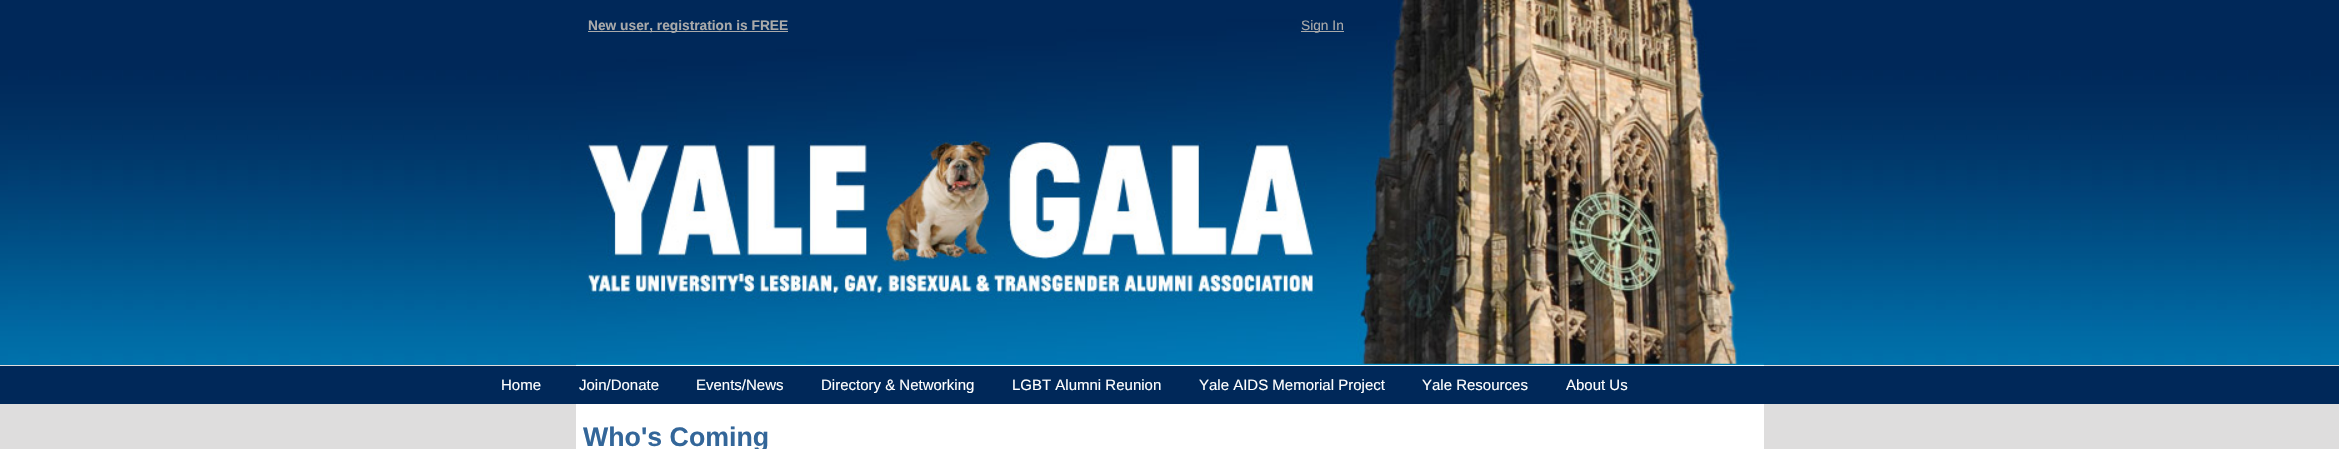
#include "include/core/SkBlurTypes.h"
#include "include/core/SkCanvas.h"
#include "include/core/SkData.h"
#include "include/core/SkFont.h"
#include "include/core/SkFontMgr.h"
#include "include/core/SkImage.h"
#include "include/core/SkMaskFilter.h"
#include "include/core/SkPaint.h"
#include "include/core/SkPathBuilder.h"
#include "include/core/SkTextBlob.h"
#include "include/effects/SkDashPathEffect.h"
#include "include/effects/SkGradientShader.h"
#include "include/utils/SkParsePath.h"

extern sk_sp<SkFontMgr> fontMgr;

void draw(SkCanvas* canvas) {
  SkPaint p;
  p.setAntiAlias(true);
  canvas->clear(SkColorSetRGB(222, 221, 221));
  canvas->drawImageRect(SkImages::DeferredFromEncodedData(SkData::MakeFromFileName("images/1.png")), SkRect::MakeLTRB(0, 0, 2339, 365), SkSamplingOptions());
  canvas->drawImageRect(SkImages::DeferredFromEncodedData(SkData::MakeFromFileName("images/2.png")), SkRect::MakeLTRB(576, 0, 1764, 365), SkSamplingOptions());
  p.setColor(SK_ColorWHITE);
  canvas->drawRect(SkRect::MakeLTRB(576, 365, 1764, 366), p);
  p.setColor(SkColorSetRGB(170, 170, 170));
  canvas->drawRect(SkRect::MakeLTRB(588, 31, 788, 32), p);
  canvas->drawRect(SkRect::MakeLTRB(1301, 31, 1344, 32), p);
  p.setColor(SkColorSetRGB(0, 40, 89));
  canvas->drawRect(SkRect::MakeLTRB(0, 366, 2339, 404), p);
  p.setColor(SK_ColorWHITE);
  canvas->drawRect(SkRect::MakeLTRB(576, 404, 1764, 449), p);
  SkFont font1(fontMgr->matchFamilyStyle("Liberation Sans", SkFontStyle::Bold()), 13.75f);
  font1.setSubpixel(true);
  p.setColor(SkColorSetRGB(170, 170, 170));
  canvas->drawString("New user, registration is FREE", 588, 30, font1, p);
  SkFont font2(fontMgr->matchFamilyStyle("Liberation Sans", SkFontStyle::Normal()), 13.75f);
  font2.setSubpixel(true);
  canvas->drawString("Sign In", 1301, 30, font2, p);
  SkFont font3(fontMgr->matchFamilyStyle("Liberation Sans", SkFontStyle::Normal()), 15);
  font3.setSubpixel(true);
  p.setColor(SK_ColorWHITE);
  canvas->drawString("Home", 501, 390, font3, p);
  canvas->drawString("Join/Donate", 579, 390, font3, p);
  canvas->drawString("Events/News", 696, 390, font3, p);
  canvas->drawString("Directory & Networking", 821, 390, font3, p);
  canvas->drawString("LGBT Alumni Reunion", 1012, 390, font3, p);
  canvas->drawString("Yale AIDS Memorial Project", 1199, 390, font3, p);
  canvas->drawString("Yale Resources", 1422, 390, font3, p);
  canvas->drawString("About Us", 1566, 390, font3, p);
  SkFont font4(fontMgr->matchFamilyStyle("Liberation Sans", SkFontStyle::Bold()), 26.75f);
  font4.setSubpixel(true);
  p.setColor(SkColorSetRGB(51, 102, 153));
  canvas->drawString("Who's Coming", 583, 446, font4, p);
}
